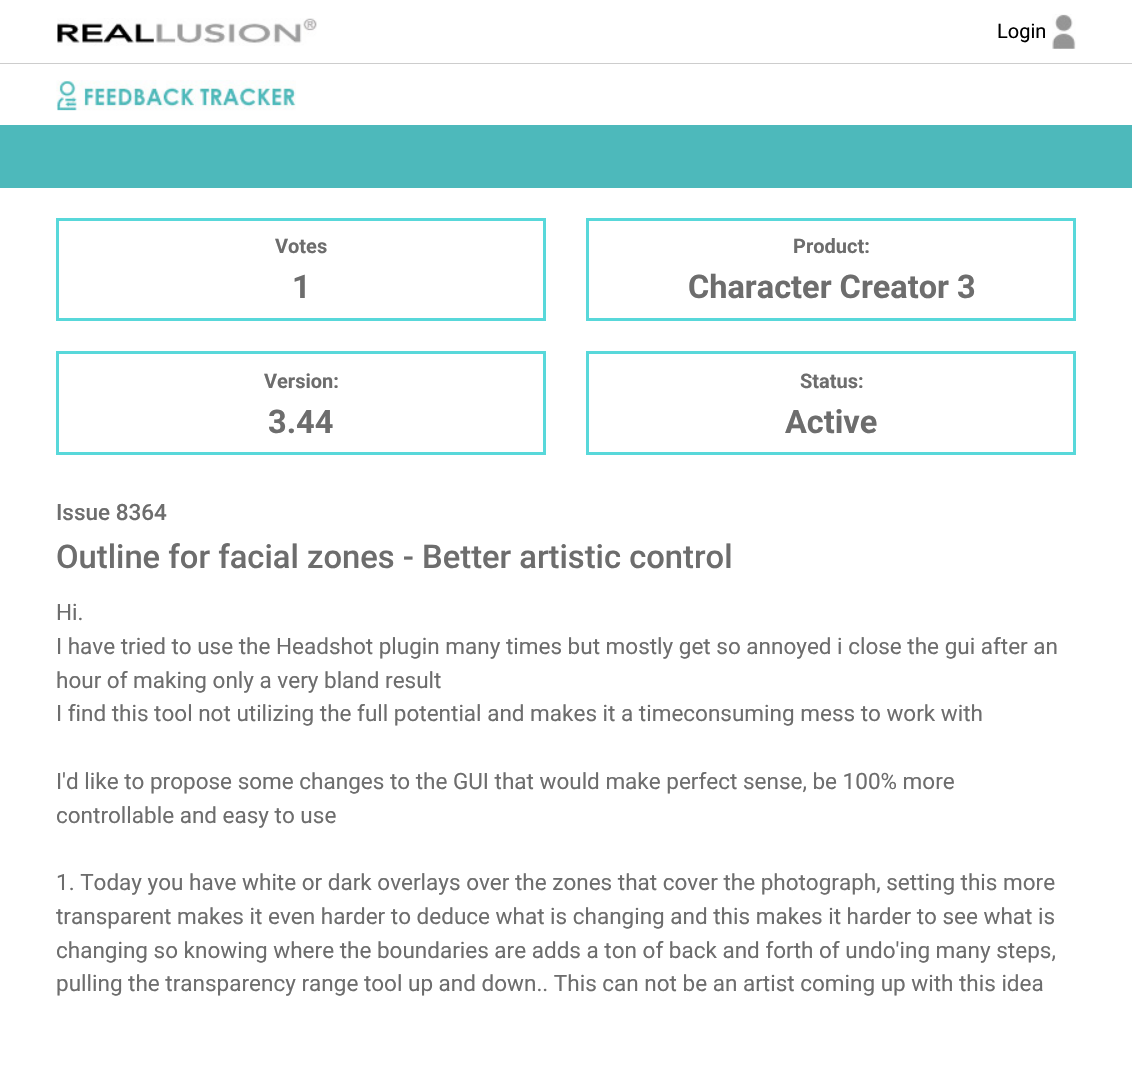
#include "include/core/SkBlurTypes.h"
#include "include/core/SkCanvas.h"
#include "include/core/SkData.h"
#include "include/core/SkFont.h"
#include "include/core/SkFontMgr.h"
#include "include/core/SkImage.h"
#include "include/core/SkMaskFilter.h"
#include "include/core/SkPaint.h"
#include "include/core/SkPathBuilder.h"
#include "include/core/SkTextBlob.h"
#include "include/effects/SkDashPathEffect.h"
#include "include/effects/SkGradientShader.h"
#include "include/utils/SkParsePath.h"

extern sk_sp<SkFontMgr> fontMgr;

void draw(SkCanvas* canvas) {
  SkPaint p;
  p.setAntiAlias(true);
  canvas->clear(SK_ColorWHITE);
  canvas->drawImageRect(SkImages::DeferredFromEncodedData(SkData::MakeFromFileName("images/1.png")), SkRect::MakeLTRB(57, 18, 317, 46), SkSamplingOptions());
  canvas->drawImageRect(SkImages::DeferredFromEncodedData(SkData::MakeFromFileName("images/2.png")), SkRect::MakeLTRB(1052, 14, 1076, 49), SkSamplingOptions());
  p.setColor(SkColorSetRGB(205, 205, 205));
  canvas->drawRect(SkRect::MakeLTRB(0, 63, 1132, 64), p);
  canvas->drawImageRect(SkImages::DeferredFromEncodedData(SkData::MakeFromFileName("images/3.png")), SkRect::MakeLTRB(56, 80, 296, 111), SkSamplingOptions());
  p.setColor(SkColorSetRGB(77, 185, 187));
  canvas->drawRect(SkRect::MakeLTRB(0, 125, 1132, 188), p);
  p.setStyle(SkPaint::kStroke_Style);
  p.setStrokeWidth(3);
  p.setColor(SkColorSetRGB(88, 216, 218));
  canvas->drawRect(SkRect::MakeLTRB(57.5f, 219.5f, 544.5f, 319.5f), p);
  canvas->drawRect(SkRect::MakeLTRB(587.5f, 219.5f, 1074.5f, 319.5f), p);
  canvas->drawRect(SkRect::MakeLTRB(57.5f, 352.5f, 544.5f, 453.5f), p);
  canvas->drawRect(SkRect::MakeLTRB(587.5f, 352.5f, 1074.5f, 453.5f), p);
  SkFont font1(fontMgr->matchFamilyStyle("Roboto", SkFontStyle::Normal()), 20);
  font1.setSubpixel(true);
  p.setStyle(SkPaint::kFill_Style);
  p.setColor(SK_ColorBLACK);
  canvas->drawString("Login", 997, 38, font1, p);
  SkFont font2(fontMgr->matchFamilyStyle("Roboto", SkFontStyle::Bold()), 20);
  font2.setSubpixel(true);
  p.setColor(SkColorSetRGB(109, 109, 109));
  canvas->drawString("Votes", 275, 253, font2, p);
  SkFont font3(fontMgr->matchFamilyStyle("Roboto", SkFontStyle::Bold()), 32.5f);
  font3.setSubpixel(true);
  canvas->drawString("1", 292, 298, font3, p);
  canvas->drawString("Product:", 793, 253, font2, p);
  canvas->drawString("Character Creator 3", 688, 298, font3, p);
  canvas->drawString("Version:", 264, 388, font2, p);
  canvas->drawString("3.44", 268, 433, font3, p);
  canvas->drawString("Status:", 800, 388, font2, p);
  canvas->drawString("Active", 785, 433, font3, p);
  SkFont font4(fontMgr->matchFamilyStyle("Roboto", SkFontStyle(500, SkFontStyle::kNormal_Width, SkFontStyle::kUpright_Slant)), 22.5f);
  font4.setSubpixel(true);
  canvas->drawString("Issue 8364", 56, 520, font4, p);
  SkFont font5(fontMgr->matchFamilyStyle("Roboto", SkFontStyle(500, SkFontStyle::kNormal_Width, SkFontStyle::kUpright_Slant)), 32.75f);
  font5.setSubpixel(true);
  canvas->drawString("Outline for facial zones - Better artistic control", 56, 568, font5, p);
  SkFont font6(fontMgr->matchFamilyStyle("Roboto", SkFontStyle::Normal()), 22.5f);
  font6.setSubpixel(true);
  canvas->drawString("Hi.", 56, 620, font6, p);
  canvas->drawString("I have tried to use the Headshot plugin many times but mostly get so annoyed i close the gui after an", 56, 654, font6, p);
  canvas->drawString("hour of making only a very bland result", 56, 688, font6, p);
  canvas->drawString("I find this tool not utilizing the full potential and makes it a timeconsuming mess to work with", 56, 721, font6, p);
  canvas->drawString("I'd like to propose some changes to the GUI that would make perfect sense, be 100% more", 56, 789, font6, p);
  canvas->drawString("controllable and easy to use", 56, 823, font6, p);
  canvas->drawString("1. Today you have white or dark overlays over the zones that cover the photograph, setting this more", 56, 890, font6, p);
  canvas->drawString("transparent makes it even harder to deduce what is changing and this makes it harder to see what is", 56, 924, font6, p);
  canvas->drawString("changing so knowing where the boundaries are adds a ton of back and forth of undo'ing many steps,", 56, 958, font6, p);
  canvas->drawString("pulling the transparency range tool up and down.. This can not be an artist coming up with this idea", 56, 991, font6, p);
}
